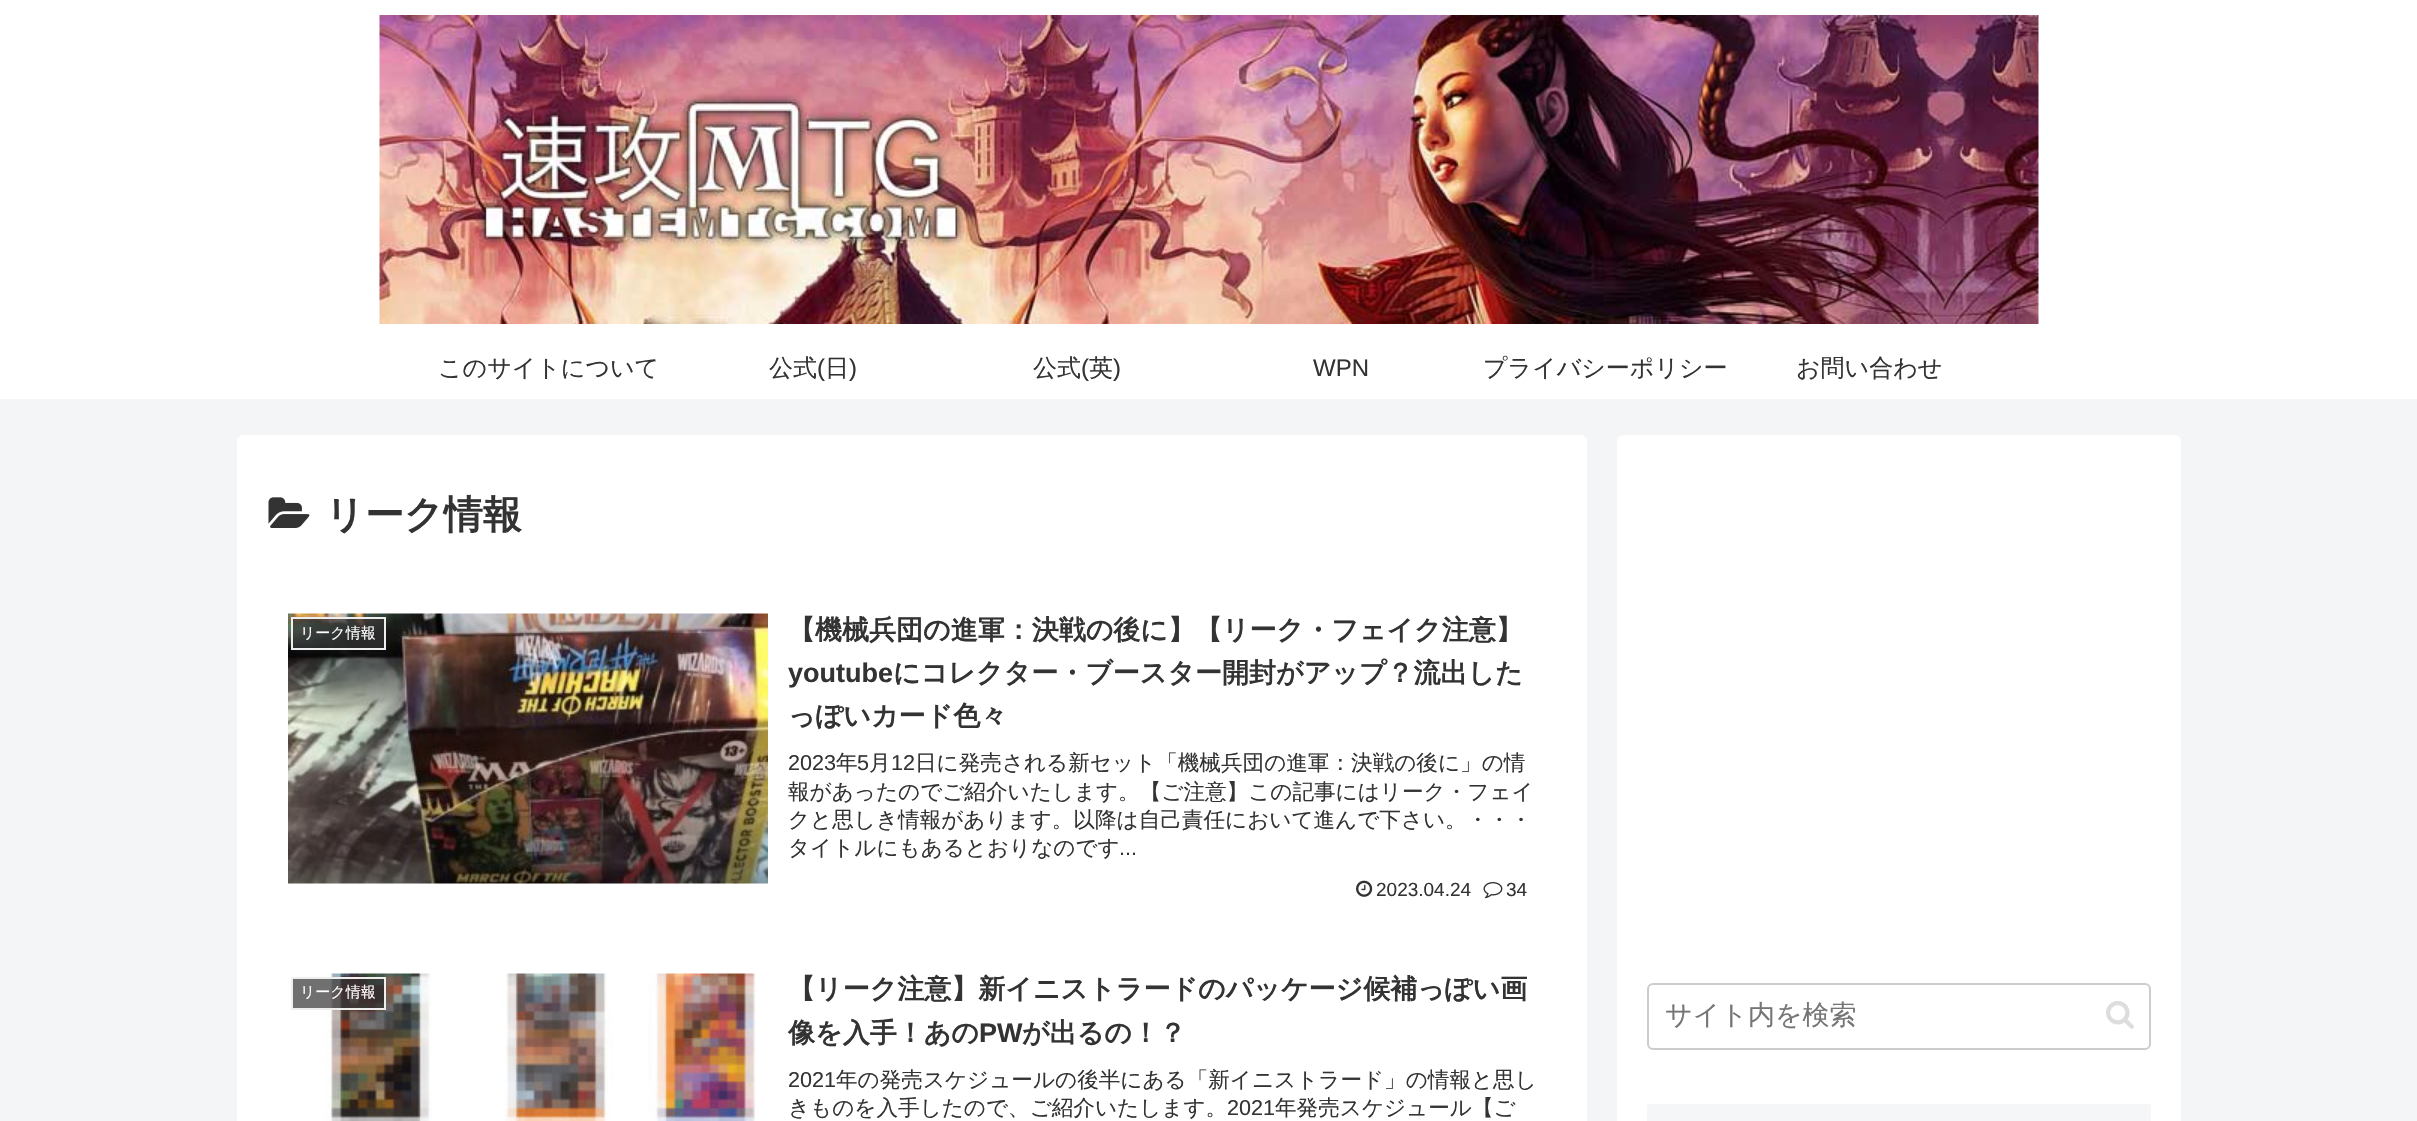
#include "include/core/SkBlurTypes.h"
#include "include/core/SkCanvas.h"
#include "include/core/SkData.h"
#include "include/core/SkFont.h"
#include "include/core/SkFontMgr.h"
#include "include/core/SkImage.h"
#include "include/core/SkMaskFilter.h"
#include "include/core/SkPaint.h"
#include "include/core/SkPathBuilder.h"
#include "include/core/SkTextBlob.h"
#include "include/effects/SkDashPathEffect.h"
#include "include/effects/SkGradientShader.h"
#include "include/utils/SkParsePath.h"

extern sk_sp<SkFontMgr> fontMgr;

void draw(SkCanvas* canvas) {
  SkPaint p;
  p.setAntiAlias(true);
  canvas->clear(SkColorSetRGB(244, 245, 247));
  p.setColor(SK_ColorWHITE);
  canvas->drawRect(SkRect::MakeLTRB(0, 0, 2417, 399), p);
  canvas->drawImageRect(SkImages::DeferredFromEncodedData(SkData::MakeFromFileName("images/1.png")), SkRect::MakeLTRB(379, 15, 2039, 324), SkSamplingOptions());
  canvas->drawRoundRect(SkRect::MakeLTRB(237, 435, 1587, 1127), 6, 6, p);
  canvas->drawImageRect(SkImages::DeferredFromEncodedData(SkData::MakeFromFileName("images/2.png")), SkRect::MakeLTRB(268, 497, 310, 528), SkSamplingOptions());
  canvas->drawImageRect(SkImages::DeferredFromEncodedData(SkData::MakeFromFileName("images/3.png")), SkRect::MakeLTRB(288, 613, 768, 884), SkSamplingOptions());
  p.setColor(SkColorSetARGB(179, 51, 51, 51));
  canvas->drawRect(SkRect::MakeLTRB(292, 618, 385, 649), p);
  p.setStyle(SkPaint::kStroke_Style);
  p.setStrokeWidth(2);
  p.setColor(SkColorSetRGB(238, 238, 238));
  canvas->drawRect(SkRect::MakeLTRB(292, 618, 385, 649), p);
  canvas->drawImageRect(SkImages::DeferredFromEncodedData(SkData::MakeFromFileName("images/4.png")), SkRect::MakeLTRB(1356, 880, 1373, 897), SkSamplingOptions());
  canvas->drawImageRect(SkImages::DeferredFromEncodedData(SkData::MakeFromFileName("images/5.png")), SkRect::MakeLTRB(1483, 882, 1503, 899), SkSamplingOptions());
  canvas->drawImageRect(SkImages::DeferredFromEncodedData(SkData::MakeFromFileName("images/6.png")), SkRect::MakeLTRB(324, 973, 756, 1121), SkSamplingOptions());
  p.setStyle(SkPaint::kFill_Style);
  p.setColor(SkColorSetARGB(179, 51, 51, 51));
  canvas->drawRect(SkRect::MakeLTRB(292, 978, 385, 1009), p);
  p.setStyle(SkPaint::kStroke_Style);
  p.setColor(SkColorSetRGB(238, 238, 238));
  canvas->drawRect(SkRect::MakeLTRB(292, 978, 385, 1009), p);
  p.setStyle(SkPaint::kFill_Style);
  p.setColor(SK_ColorWHITE);
  canvas->drawRoundRect(SkRect::MakeLTRB(1617, 435, 2181, 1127), 6, 6, p);
  p.setStyle(SkPaint::kStroke_Style);
  p.setColor(SkColorSetRGB(204, 204, 204));
  canvas->drawRoundRect(SkRect::MakeLTRB(1648, 984, 2150, 1049), 5, 5, p);
  canvas->drawImageRect(SkImages::DeferredFromEncodedData(SkData::MakeFromFileName("images/7.png")), SkRect::MakeLTRB(2106, 1001, 2134, 1029), SkSamplingOptions());
  p.setStyle(SkPaint::kFill_Style);
  p.setColor(SkColorSetRGB(245, 246, 247));
  canvas->drawRoundRect(SkRect::MakeLTRB(1647, 1104, 2151, 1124), 3, 3, p);
  SkFont font1(fontMgr->matchFamilyStyle("WenQuanYi Zen Hei", SkFontStyle(500, SkFontStyle::kNormal_Width, SkFontStyle::kUpright_Slant)), 24);
  font1.setSubpixel(true);
  p.setColor(SkColorSetRGB(51, 51, 51));
  canvas->drawString("このサイトについて", 438, 376, font1, p);
  canvas->drawString("公式", 769, 376, font1, p);
  SkFont font2(fontMgr->matchFamilyStyle("Liberation Sans", SkFontStyle::Normal()), 24);
  font2.setSubpixel(true);
  canvas->drawString("(", 817, 376, font2, p);
  canvas->drawString("日", 825, 376, font1, p);
  canvas->drawString(")", 849, 376, font2, p);
  canvas->drawString("公式", 1033, 376, font1, p);
  canvas->drawString("(", 1081, 376, font2, p);
  canvas->drawString("英", 1089, 376, font1, p);
  canvas->drawString(")", 1113, 376, font2, p);
  canvas->drawString("WPN", 1313, 376, font2, p);
  canvas->drawString("プライバシーポリシー", 1483, 376, font1, p);
  canvas->drawString("お問い合わせ", 1796, 376, font1, p);
  SkFont font3(fontMgr->matchFamilyStyle("WenQuanYi Zen Hei", SkFontStyle::Bold()), 39);
  font3.setSubpixel(true);
  canvas->drawString("リーク情報", 325, 528, font3, p);
  SkFont font4(fontMgr->matchFamilyStyle("WenQuanYi Zen Hei", SkFontStyle(500, SkFontStyle::kNormal_Width, SkFontStyle::kUpright_Slant)), 15);
  font4.setSubpixel(true);
  p.setColor(SK_ColorWHITE);
  canvas->drawString("リーク情報", 300, 638, font4, p);
  SkFont font5(fontMgr->matchFamilyStyle("WenQuanYi Zen Hei", SkFontStyle::Bold()), 27);
  font5.setSubpixel(true);
  p.setColor(SkColorSetRGB(51, 51, 51));
  canvas->drawString("【機械兵団の進軍：決戦の後に】【リーク・フェイク注意】", 788, 639, font5, p);
  SkFont font6(fontMgr->matchFamilyStyle("Liberation Sans", SkFontStyle::Bold()), 27);
  font6.setSubpixel(true);
  canvas->drawString("youtube", 788, 682, font6, p);
  canvas->drawString("にコレクター・ブースター開封がアップ？流出した", 893, 682, font5, p);
  canvas->drawString("っぽいカード色々", 788, 725, font5, p);
  SkFont font7(fontMgr->matchFamilyStyle("Liberation Sans", SkFontStyle::Normal()), 21.6f);
  font7.setSubpixel(true);
  canvas->drawString("2023", 788, 770, font7, p);
  SkFont font8(fontMgr->matchFamilyStyle("WenQuanYi Zen Hei", SkFontStyle(500, SkFontStyle::kNormal_Width, SkFontStyle::kUpright_Slant)), 21.6f);
  font8.setSubpixel(true);
  canvas->drawString("年", 836, 770, font8, p);
  canvas->drawString("5", 857, 770, font7, p);
  canvas->drawString("月", 869, 770, font8, p);
  canvas->drawString("12", 891, 770, font7, p);
  canvas->drawString("日に発売される新セット「機械兵団の進軍：決戦の後に」の情", 915, 770, font8, p);
  canvas->drawString("報があったのでご紹介いたします。【ご注意】この記事にはリーク・フェイ", 788, 799, font8, p);
  canvas->drawString("クと思しき情報があります。以降は自己責任において進んで下さい。・・・", 788, 827, font8, p);
  canvas->drawString("タイトルにもあるとおりなのです", 788, 855, font8, p);
  canvas->drawString("...", 1119, 855, font7, p);
  SkFont font9(fontMgr->matchFamilyStyle("Liberation Sans", SkFontStyle::Normal()), 19);
  font9.setSubpixel(true);
  canvas->drawString("2023.04.24", 1376, 896, font9, p);
  canvas->drawString("34", 1506, 896, font9, p);
  p.setColor(SK_ColorWHITE);
  canvas->drawString("リーク情報", 300, 997, font4, p);
  p.setColor(SkColorSetRGB(51, 51, 51));
  canvas->drawString("【リーク注意】新イニストラードのパッケージ候補っぽい画", 788, 998, font5, p);
  canvas->drawString("像を入手！あの", 788, 1042, font5, p);
  canvas->drawString("PW", 979, 1042, font6, p);
  canvas->drawString("が出るの！？", 1022, 1042, font5, p);
  canvas->drawString("2021", 788, 1087, font7, p);
  canvas->drawString("年の発売スケジュールの後半にある「新イニストラード」の情報と思し", 836, 1087, font8, p);
  canvas->drawString("きものを入手したので、ご紹介いたします。", 788, 1115, font8, p);
  canvas->drawString("2021", 1227, 1115, font7, p);
  canvas->drawString("年発売スケジュール【ご", 1275, 1115, font8, p);
  SkFont font10(fontMgr->matchFamilyStyle("WenQuanYi Zen Hei", SkFontStyle(500, SkFontStyle::kNormal_Width, SkFontStyle::kUpright_Slant)), 27);
  font10.setSubpixel(true);
  p.setColor(SkColorSetRGB(117, 117, 117));
  canvas->drawString("サイト内を検索", 1665, 1024, font10, p);
}
